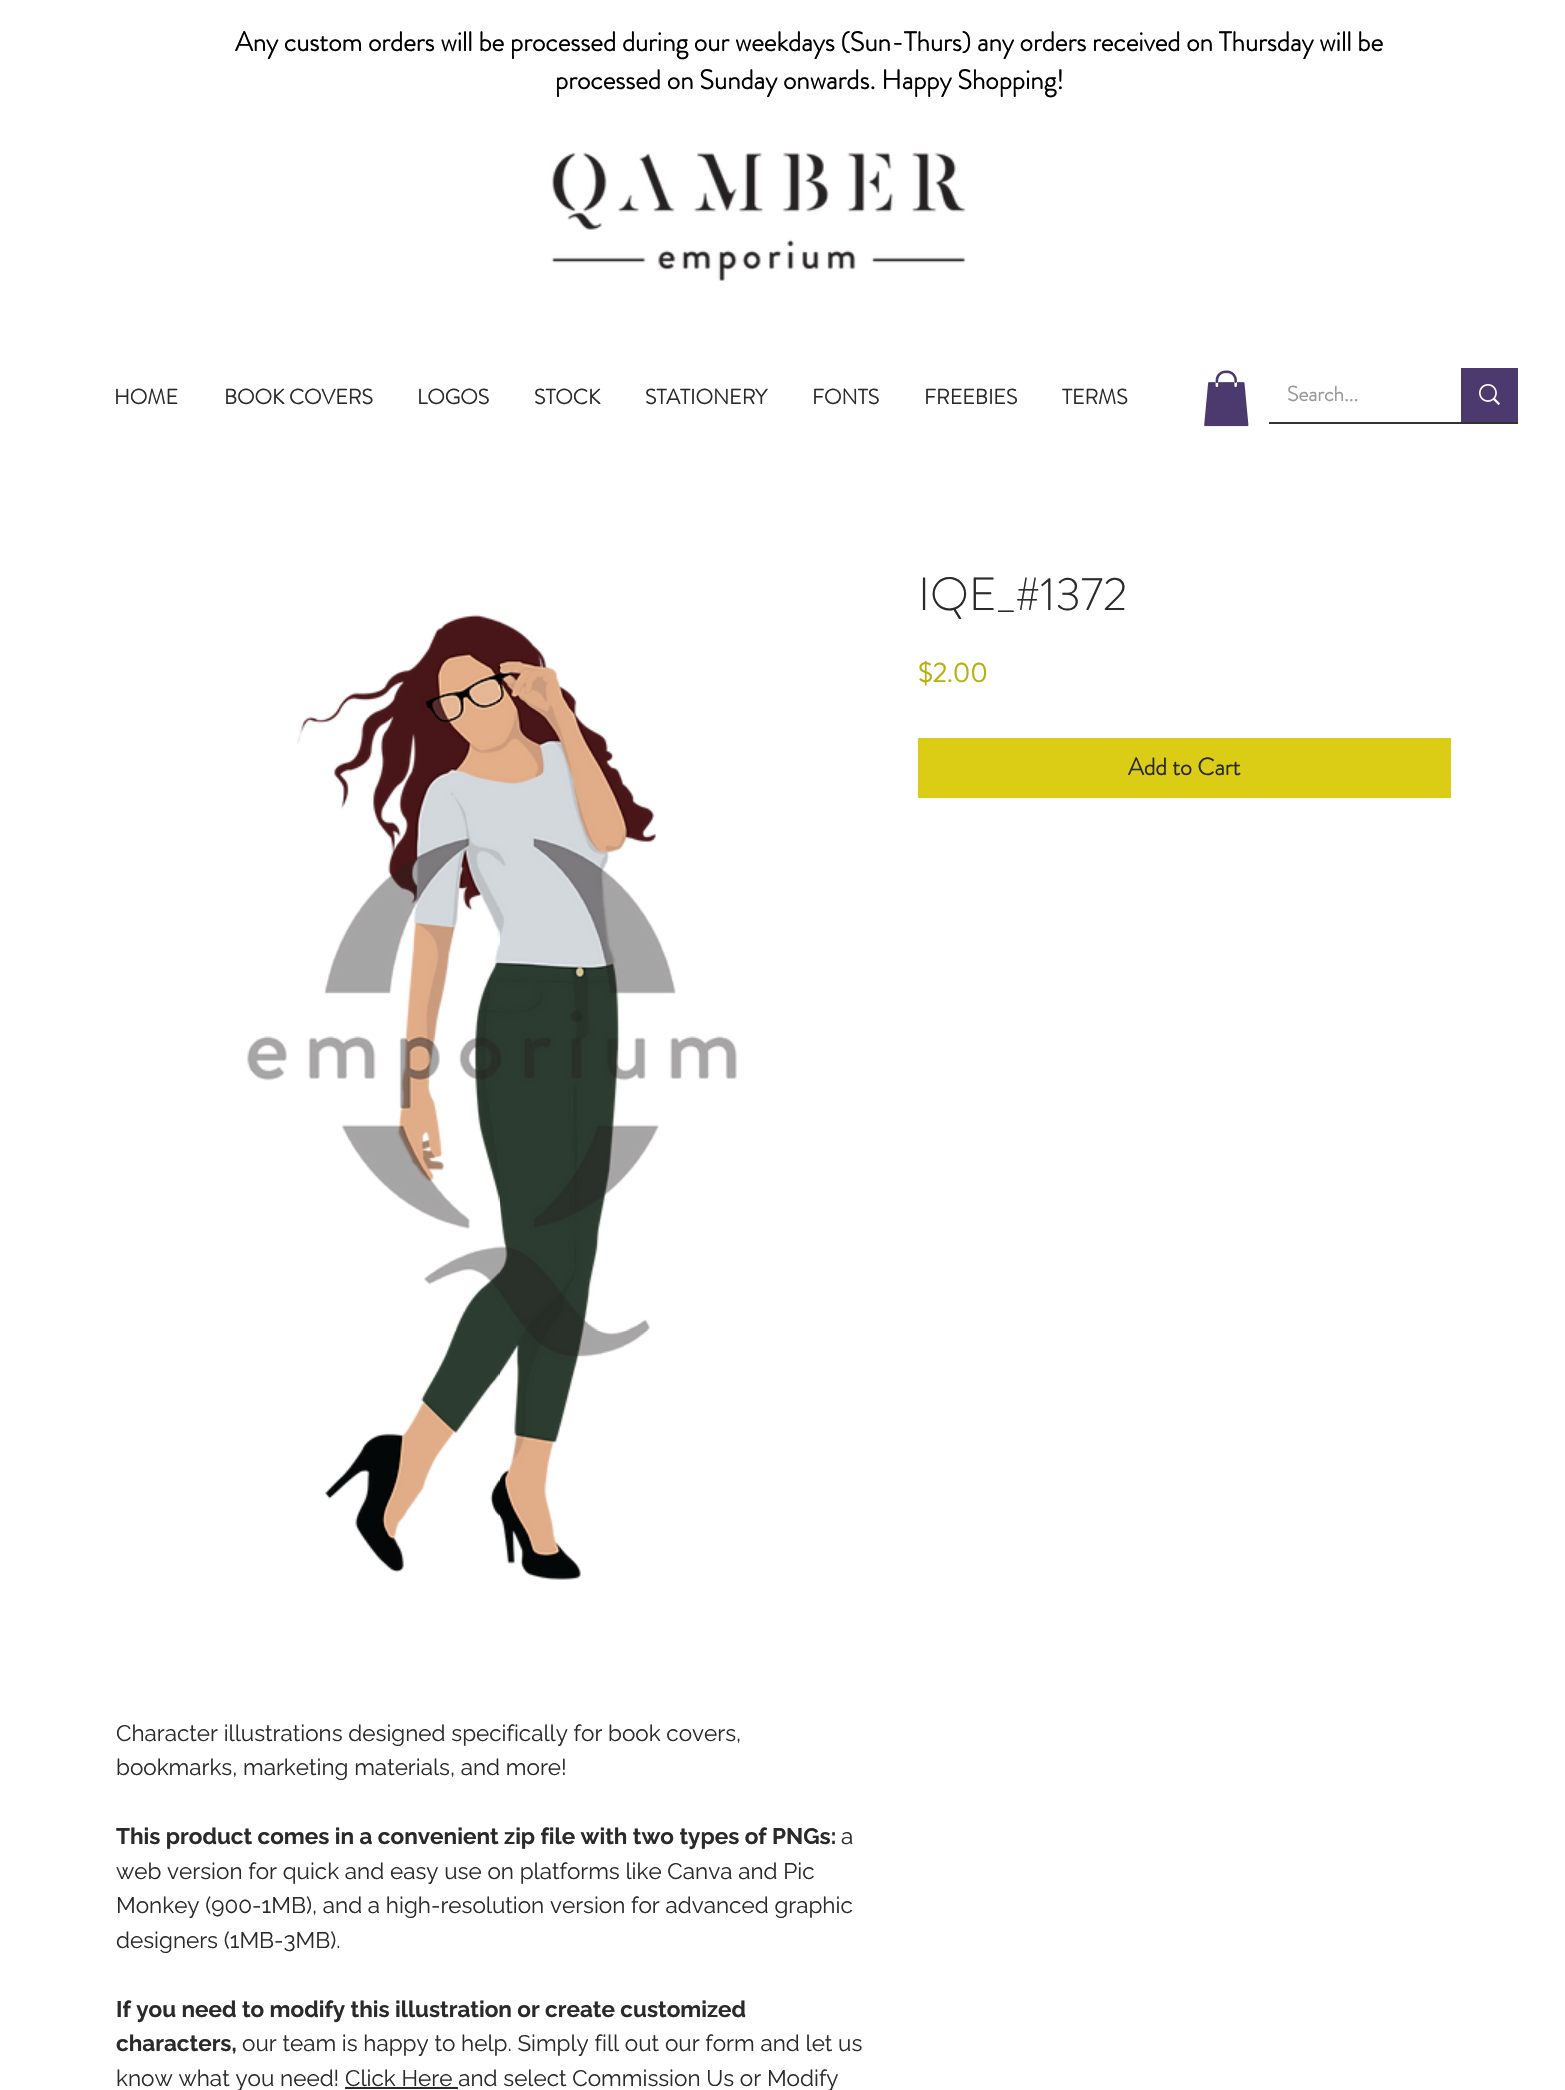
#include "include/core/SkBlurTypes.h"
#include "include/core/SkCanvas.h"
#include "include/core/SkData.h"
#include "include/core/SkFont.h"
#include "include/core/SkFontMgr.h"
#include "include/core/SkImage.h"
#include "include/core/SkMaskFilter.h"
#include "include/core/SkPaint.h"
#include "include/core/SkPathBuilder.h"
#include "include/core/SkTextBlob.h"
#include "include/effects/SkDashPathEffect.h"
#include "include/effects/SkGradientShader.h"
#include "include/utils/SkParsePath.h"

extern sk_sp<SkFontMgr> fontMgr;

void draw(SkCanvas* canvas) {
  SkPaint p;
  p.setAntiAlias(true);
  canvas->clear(SK_ColorWHITE);
  canvas->drawImageRect(SkImages::DeferredFromEncodedData(SkData::MakeFromFileName("images/1.png")), SkRect::MakeLTRB(551, 152, 966, 281), SkSamplingOptions());
  canvas->drawImageRect(SkImages::DeferredFromEncodedData(SkData::MakeFromFileName("images/2.png")), SkRect::MakeLTRB(1204, 370, 1249, 427), SkSamplingOptions());
  p.setColor(SkColorSetRGB(50, 50, 50));
  canvas->drawRect(SkRect::MakeLTRB(1269, 422, 1518, 424), p);
  p.setColor(SkColorSetRGB(76, 57, 109));
  canvas->drawRect(SkRect::MakeLTRB(1461, 368, 1518, 422), p);
  canvas->drawImageRect(SkImages::DeferredFromEncodedData(SkData::MakeFromFileName("images/3.png")), SkRect::MakeLTRB(1479, 384, 1500, 405), SkSamplingOptions());
  p.setColor(SkColorSetRGB(219, 205, 22));
  canvas->drawRect(SkRect::MakeLTRB(918, 738, 1451, 798), p);
  canvas->drawImageRect(SkImages::DeferredFromEncodedData(SkData::MakeFromFileName("images/4.png")), SkRect::MakeLTRB(247, 614, 737, 1580), SkSamplingOptions());
  p.setColor(SkColorSetRGB(42, 42, 42));
  canvas->drawRect(SkRect::MakeLTRB(345, 2087, 458, 2089), p);
  SkFont font1(fontMgr->matchFamilyStyle("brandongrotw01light", SkFontStyle::Bold()), 27);
  font1.setSubpixel(true);
  p.setColor(SK_ColorBLACK);
  canvas->drawString("Any custom orders will be processed during our weekdays (Sun-Thurs) any orders received on Thursday will be", 235, 51, font1, p);
  canvas->drawString("processed on Sunday onwards. Happy Shopping!", 555, 89, font1, p);
  SkFont font2(fontMgr->matchFamilyStyle("brandongrotw01light", SkFontStyle::Bold()), 21);
  font2.setSubpixel(true);
  p.setColor(SkColorSetRGB(42, 42, 42));
  canvas->drawString("HOME", 114, 404, font2, p);
  canvas->drawString("BOOK COVERS", 224, 404, font2, p);
  canvas->drawString("LOGOS", 417, 404, font2, p);
  canvas->drawString("STOCK", 534, 404, font2, p);
  canvas->drawString("STATIONERY", 645, 404, font2, p);
  canvas->drawString("FONTS", 812, 404, font2, p);
  canvas->drawString("FREEBIES", 924, 404, font2, p);
  canvas->drawString("TERMS", 1062, 404, font2, p);
  p.setColor(SkColorSetRGB(153, 153, 153));
  canvas->drawString("Search...", 1287, 401, font2, p);
  SkFont font3(fontMgr->matchFamilyStyle("brandongrotw01light", SkFontStyle(300, SkFontStyle::kNormal_Width, SkFontStyle::kUpright_Slant)), 46.5f);
  font3.setSubpixel(true);
  p.setColor(SkColorSetRGB(42, 42, 42));
  canvas->drawString("IQE_#1372", 918, 610, font3, p);
  p.setColor(SkColorSetRGB(186, 175, 15));
  canvas->drawString("$2.00", 918, 682, font1, p);
  SkFont font4(fontMgr->matchFamilyStyle("brandongrotw01light", SkFontStyle::Bold()), 24);
  font4.setSubpixel(true);
  p.setColor(SkColorSetRGB(42, 42, 42));
  canvas->drawString("Add to Cart", 1128, 775, font4, p);
  SkFont font5(fontMgr->matchFamilyStyle("Raleway", SkFontStyle::Normal()), 22.5f);
  font5.setSubpixel(true);
  canvas->drawString("Character illustrations designed specifically for book covers,", 116, 1741, font5, p);
  canvas->drawString("bookmarks, marketing materials, and more!", 116, 1775, font5, p);
  canvas->save();
  canvas->clipRect(SkRect::MakeLTRB(116, 1716, 866, 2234));
  SkFont font6(fontMgr->matchFamilyStyle("Raleway", SkFontStyle::Bold()), 22.5f);
  font6.setSubpixel(true);
  canvas->drawString("This product comes in a convenient zip file with two types of PNGs:", 116, 1844, font6, p);
  canvas->restore();
  canvas->drawString("a", 841, 1844, font5, p);
  canvas->drawString("web version for quick and easy use on platforms like Canva and Pic", 116, 1879, font5, p);
  canvas->drawString("Monkey (900-1MB), and a high-resolution version for advanced graphic", 116, 1913, font5, p);
  canvas->drawString("designers (1MB-3MB).", 116, 1948, font5, p);
  canvas->drawString("If you need to modify this illustration or create customized", 116, 2017, font6, p);
  canvas->drawString("characters,", 116, 2051, font6, p);
  canvas->drawString("our team is happy to help. Simply fill out our form and let us", 242, 2051, font5, p);
  canvas->drawString("know what you need! Click Here and select Commission Us or Modify", 116, 2086, font5, p);
}
